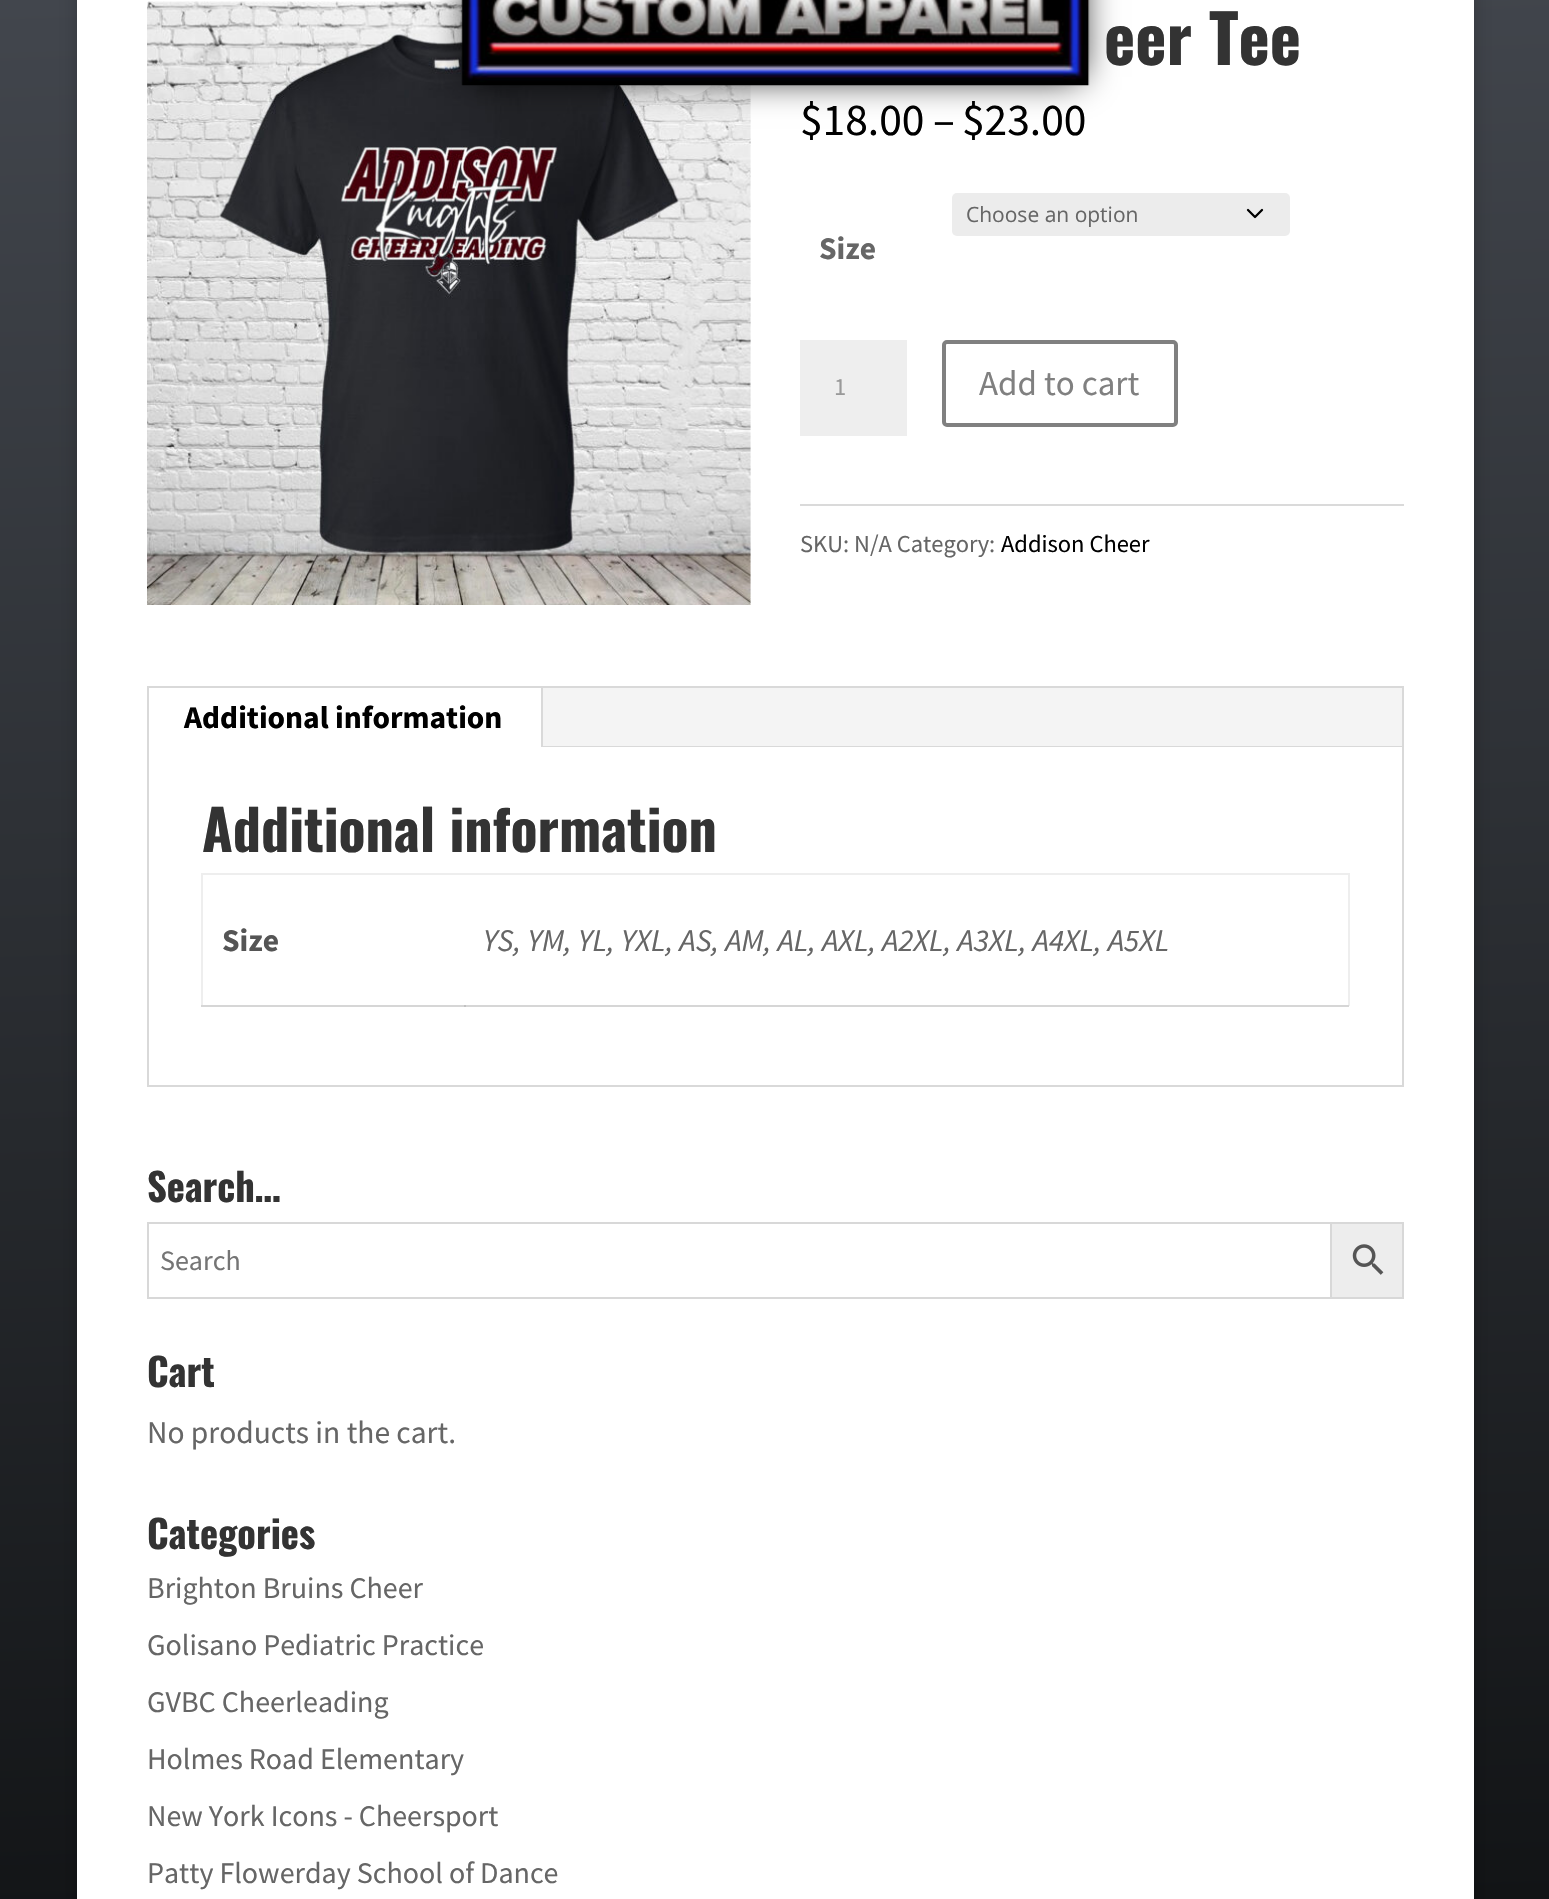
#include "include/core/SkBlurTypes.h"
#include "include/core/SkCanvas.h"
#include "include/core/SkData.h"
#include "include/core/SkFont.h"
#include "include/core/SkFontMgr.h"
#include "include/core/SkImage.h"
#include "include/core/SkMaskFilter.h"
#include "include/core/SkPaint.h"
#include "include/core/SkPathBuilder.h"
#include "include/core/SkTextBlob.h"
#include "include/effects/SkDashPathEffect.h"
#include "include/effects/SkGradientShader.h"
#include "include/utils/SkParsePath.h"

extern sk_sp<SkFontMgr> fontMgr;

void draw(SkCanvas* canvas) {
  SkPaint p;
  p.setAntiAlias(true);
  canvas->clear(SK_ColorWHITE);
  {
    const SkColor colors[] = {SkColorSetRGB(66, 70, 77), SkColorSetRGB(18, 20, 22)};
    const float stops[] = {0, 1};
    const SkPoint ends[] = {{741, -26}, {809, 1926}};
    p.setShader(SkGradientShader::MakeLinear(ends, colors, stops, 2, SkTileMode::kClamp));
    p.setAlpha(255);
  }
  canvas->drawRect(SkRect::MakeLTRB(0, 0, 1549, 1899), p);
  p.setShader(nullptr);
  p.setColor(SkColorSetARGB(51, 0, 0, 0));
  p.setMaskFilter(SkMaskFilter::MakeBlur(kNormal_SkBlurStyle, 9));
  canvas->drawRect(SkRect::MakeLTRB(77, -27, 1474, 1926), p);
  p.setMaskFilter(nullptr);
  p.setColor(SK_ColorWHITE);
  canvas->drawRect(SkRect::MakeLTRB(77, 0, 1474, 1899), p);
  canvas->drawImageRect(SkImages::DeferredFromEncodedData(SkData::MakeFromFileName("images/2.png")), SkRect::MakeLTRB(147, 1, 751, 605), SkSamplingOptions());
  canvas->drawCircle(687.5f, 64.5f, 31.5f, p);
  p.setColor(SK_ColorBLACK);
  p.setMaskFilter(SkMaskFilter::MakeBlur(kNormal_SkBlurStyle, 17.5f));
  canvas->drawRect(SkRect::MakeLTRB(471, -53, 1080, 77), p);
  p.setMaskFilter(nullptr);
  canvas->drawImageRect(SkImages::DeferredFromEncodedData(SkData::MakeFromFileName("images/1.png")), SkRect::MakeLTRB(461, 0, 1090, 86), SkSamplingOptions());
  p.setColor(SkColorSetRGB(236, 236, 236));
  canvas->drawRoundRect(SkRect::MakeLTRB(952, 193, 1290, 236), 5, 5, p);
  p.setStyle(SkPaint::kStroke_Style);
  p.setStrokeWidth(2.3f);
  p.setStrokeCap(SkPaint::kRound_Cap);
  p.setStrokeJoin(SkPaint::kRound_Join);
  p.setColor(SK_ColorBLACK);
  canvas->drawPath(SkPathBuilder().moveTo(1248, 210).lineTo(1255, 217).lineTo(1262, 210).detach(), p);
  p.setStyle(SkPaint::kFill_Style);
  p.setColor(SkColorSetRGB(238, 238, 238));
  canvas->drawRect(SkRect::MakeLTRB(800, 340, 907, 436), p);
  p.setStyle(SkPaint::kStroke_Style);
  p.setStrokeWidth(4);
  p.setStrokeCap(SkPaint::kButt_Cap);
  p.setStrokeJoin(SkPaint::kMiter_Join);
  p.setColor(SkColorSetRGB(128, 128, 128));
  canvas->drawRoundRect(SkRect::MakeLTRB(944, 342, 1176, 425), 3, 3, p);
  p.setStyle(SkPaint::kFill_Style);
  p.setColor(SkColorSetRGB(218, 218, 218));
  canvas->drawRect(SkRect::MakeLTRB(800, 504, 1404, 506), p);
  p.setStyle(SkPaint::kStroke_Style);
  p.setStrokeWidth(2);
  p.setColor(SkColorSetRGB(217, 217, 217));
  canvas->drawRect(SkRect::MakeLTRB(148, 687, 1403, 1086), p);
  p.setStyle(SkPaint::kFill_Style);
  p.setColor(SkColorSetRGB(244, 244, 244));
  canvas->drawRect(SkRect::MakeLTRB(543, 688, 1402, 746), p);
  p.setColor(SkColorSetRGB(217, 217, 217));
  canvas->drawRect(SkRect::MakeLTRB(541, 688, 543, 747), p);
  canvas->drawRect(SkRect::MakeLTRB(543, 746, 1402, 747), p);
  p.setColor(SkColorSetRGB(238, 238, 238));
  canvas->drawRect(SkRect::MakeLTRB(201, 873, 1349, 875), p);
  canvas->drawRect(SkRect::MakeLTRB(1348, 873, 1350, 1006), p);
  p.setColor(SkColorSetRGB(214, 214, 214));
  canvas->drawRect(SkRect::MakeLTRB(201, 1005, 1349, 1007), p);
  p.setColor(SkColorSetRGB(238, 238, 238));
  canvas->drawRect(SkRect::MakeLTRB(201, 873, 203, 1006), p);
  p.setColor(SkColorSetRGB(214, 214, 214));
  canvas->drawRect(SkRect::MakeLTRB(201, 1005, 203, 1006), p);
  p.setColor(SkColorSetRGB(193, 193, 193));
  canvas->drawRect(SkRect::MakeLTRB(464, 1005, 466, 1007), p);
  p.setColor(SkColorSetRGB(237, 237, 237));
  canvas->drawRect(SkRect::MakeLTRB(1331, 1223, 1403, 1298), p);
  p.setStyle(SkPaint::kStroke_Style);
  p.setColor(SkColorSetRGB(216, 216, 216));
  canvas->drawRect(SkRect::MakeLTRB(1331, 1223, 1403, 1298), p);
  canvas->drawRect(SkRect::MakeLTRB(148, 1223, 1331, 1298), p);
  canvas->drawImageRect(SkImages::DeferredFromEncodedData(SkData::MakeFromFileName("images/3.png")), SkRect::MakeLTRB(1352, 1244, 1384, 1275), SkSamplingOptions());
  SkFont font1(fontMgr->matchFamilyStyle("Oswald", SkFontStyle::Bold()), 66.5f);
  font1.setSubpixel(true);
  p.setStyle(SkPaint::kFill_Style);
  p.setColor(SkColorSetRGB(51, 51, 51));
  canvas->drawString("eer Tee", 1104, 65, font1, p);
  SkFont font2(fontMgr->matchFamilyStyle("Source Sans Pro", SkFontStyle::Normal()), 45.5f);
  font2.setSubpixel(true);
  p.setColor(SK_ColorBLACK);
  canvas->drawString("$18.00", 800, 135, font2, p);
  canvas->drawString("–", 933, 135, font2, p);
  canvas->drawString("$23.00", 962, 135, font2, p);
  SkFont font3(fontMgr->matchFamilyStyle("Open Sans", SkFontStyle::Normal()), 21);
  font3.setSubpixel(true);
  p.setColor(SkColorSetRGB(102, 102, 102));
  canvas->drawString("Choose an option", 966, 222, font3, p);
  SkFont font4(fontMgr->matchFamilyStyle("Source Sans Pro", SkFontStyle::Bold()), 31.5f);
  font4.setSubpixel(true);
  canvas->drawString("Size", 819, 259, font4, p);
  SkFont font5(fontMgr->matchFamilyStyle("Source Sans Pro", SkFontStyle::Normal()), 24.5f);
  font5.setSubpixel(true);
  p.setColor(SkColorSetRGB(153, 153, 153));
  canvas->drawString("1", 834, 395, font5, p);
  SkFont font6(fontMgr->matchFamilyStyle("Source Sans Pro", SkFontStyle::Normal()), 35);
  font6.setSubpixel(true);
  p.setColor(SkColorSetRGB(128, 128, 128));
  canvas->drawString("Add to cart", 979, 395, font6, p);
  p.setColor(SkColorSetRGB(102, 102, 102));
  canvas->drawString("SKU: N/A Category:", 800, 552, font5, p);
  p.setColor(SK_ColorBLACK);
  canvas->drawString("Addison Cheer", 1001, 552, font5, p);
  canvas->drawString("Additional information", 184, 728, font4, p);
  SkFont font7(fontMgr->matchFamilyStyle("Oswald", SkFontStyle::Bold()), 56);
  font7.setSubpixel(true);
  p.setColor(SkColorSetRGB(51, 51, 51));
  canvas->drawString("Additional information", 202, 852, font7, p);
  p.setColor(SkColorSetRGB(85, 85, 85));
  canvas->drawString("Size", 222, 951, font4, p);
  SkFont font8(fontMgr->matchFamilyStyle("Source Sans Pro", SkFontStyle::Italic()), 31.5f);
  font8.setSubpixel(true);
  p.setColor(SkColorSetRGB(102, 102, 102));
  canvas->drawString("YS, YM, YL, YXL, AS, AM, AL, AXL, A2XL, A3XL, A4XL, A5XL", 483, 951, font8, p);
  SkFont font9(fontMgr->matchFamilyStyle("Oswald", SkFontStyle::Bold()), 38.5f);
  font9.setSubpixel(true);
  p.setColor(SkColorSetRGB(51, 51, 51));
  canvas->drawString("Search…", 147, 1202, font9, p);
  SkFont font10(fontMgr->matchFamilyStyle("Source Sans Pro", SkFontStyle::Normal()), 28);
  font10.setSubpixel(true);
  p.setColor(SkColorSetRGB(117, 117, 117));
  canvas->drawString("Search", 160, 1270, font10, p);
  p.setColor(SkColorSetRGB(51, 51, 51));
  canvas->drawString("Cart", 147, 1387, font9, p);
  SkFont font11(fontMgr->matchFamilyStyle("Source Sans Pro", SkFontStyle::Normal()), 31.5f);
  font11.setSubpixel(true);
  p.setColor(SkColorSetRGB(102, 102, 102));
  canvas->drawString("No products in the cart.", 147, 1443, font11, p);
  p.setColor(SkColorSetRGB(51, 51, 51));
  canvas->drawString("Categories", 147, 1549, font9, p);
  SkFont font12(fontMgr->matchFamilyStyle("Source Sans Pro", SkFontStyle::Normal()), 30);
  font12.setSubpixel(true);
  p.setColor(SkColorSetRGB(102, 102, 102));
  canvas->drawString("Brighton Bruins Cheer", 147, 1598, font12, p);
  canvas->drawString("Golisano Pediatric Practice", 147, 1655, font12, p);
  canvas->drawString("GVBC Cheerleading", 147, 1712, font12, p);
  canvas->drawString("Holmes Road Elementary", 147, 1769, font12, p);
  canvas->drawString("New York Icons - Cheersport", 147, 1826, font12, p);
  canvas->drawString("Patty Flowerday School of Dance", 147, 1883, font12, p);
}
